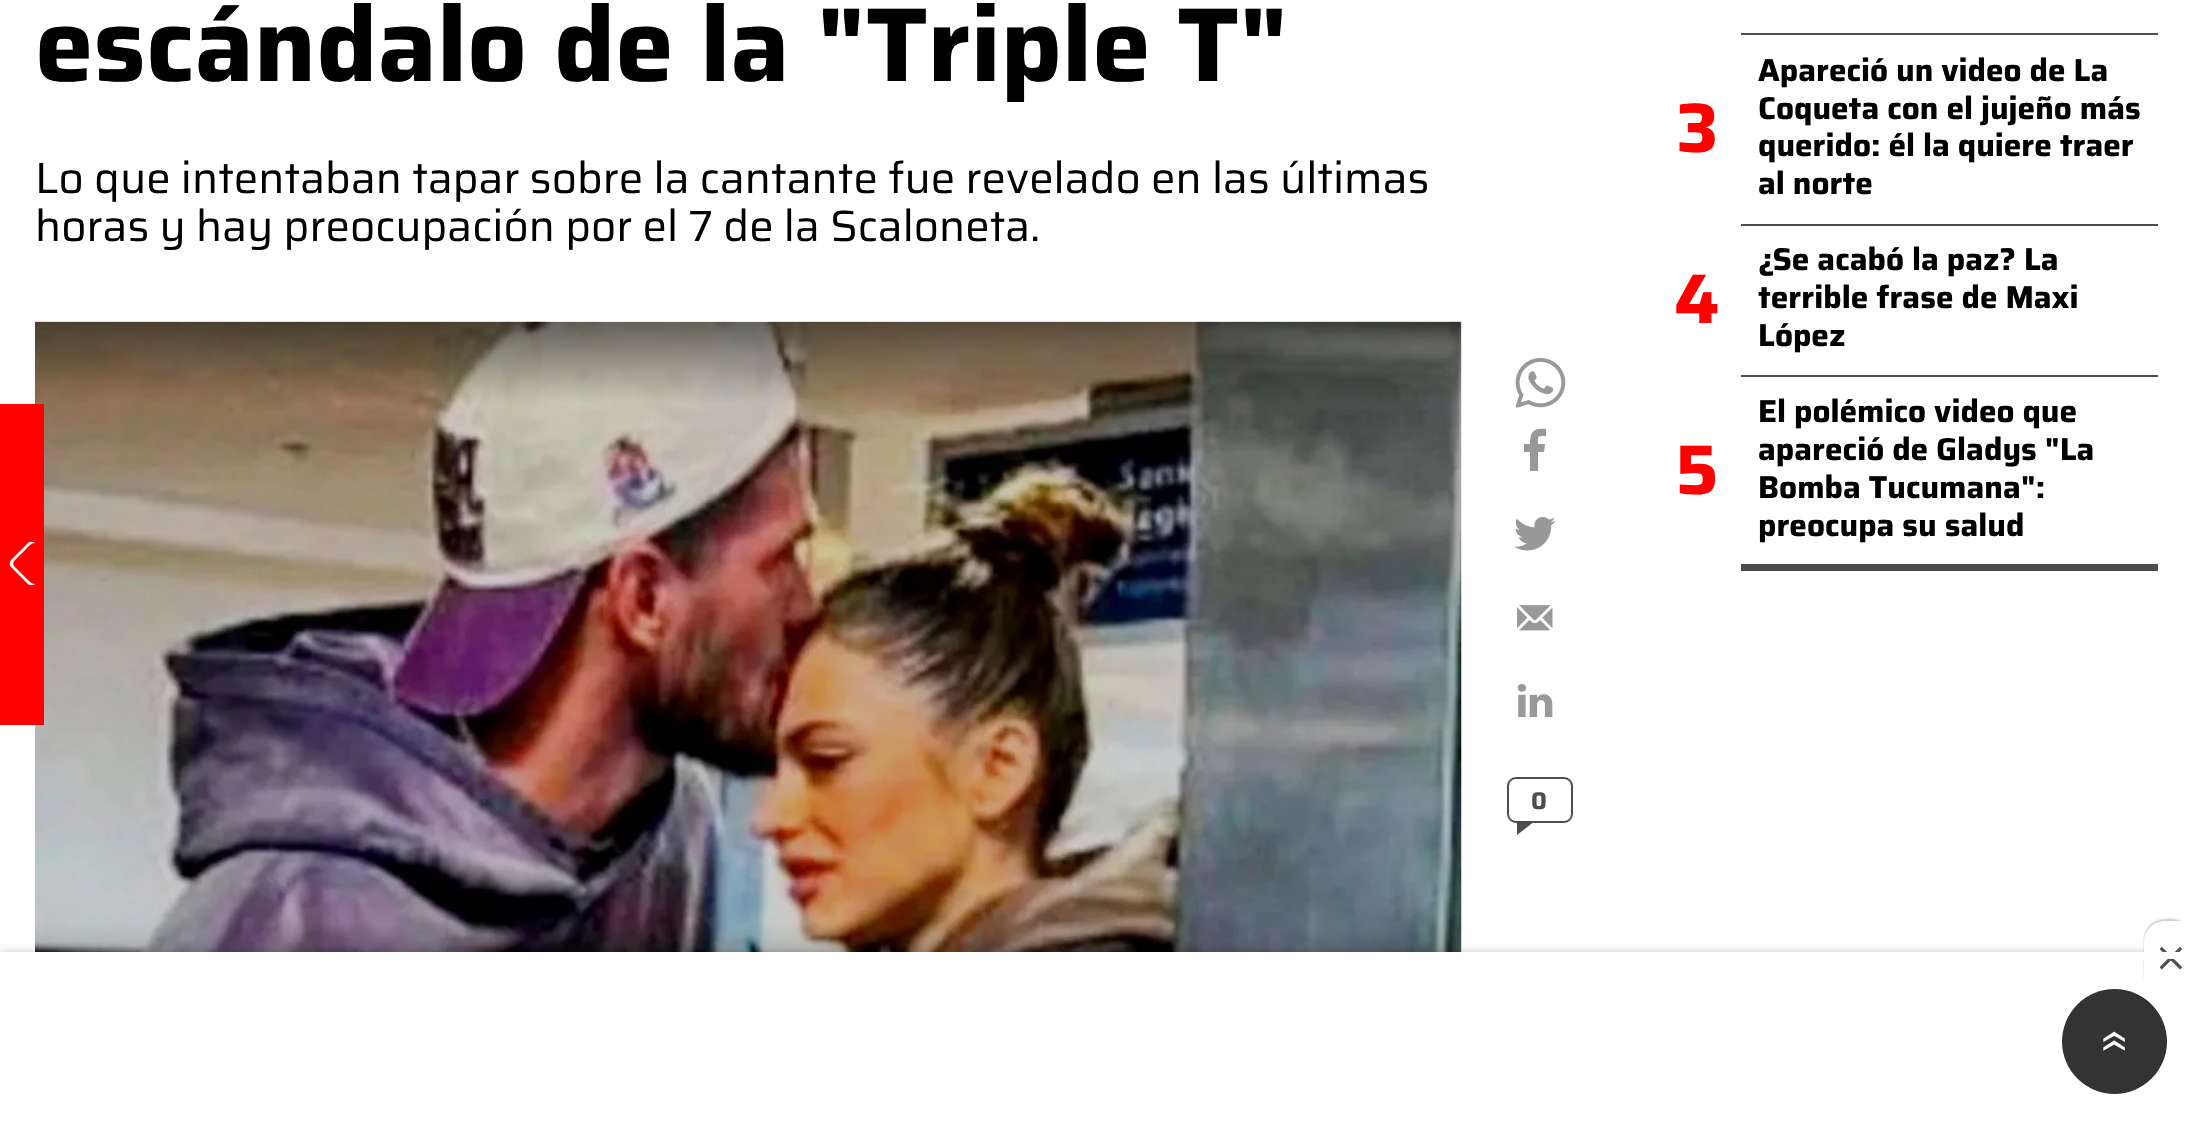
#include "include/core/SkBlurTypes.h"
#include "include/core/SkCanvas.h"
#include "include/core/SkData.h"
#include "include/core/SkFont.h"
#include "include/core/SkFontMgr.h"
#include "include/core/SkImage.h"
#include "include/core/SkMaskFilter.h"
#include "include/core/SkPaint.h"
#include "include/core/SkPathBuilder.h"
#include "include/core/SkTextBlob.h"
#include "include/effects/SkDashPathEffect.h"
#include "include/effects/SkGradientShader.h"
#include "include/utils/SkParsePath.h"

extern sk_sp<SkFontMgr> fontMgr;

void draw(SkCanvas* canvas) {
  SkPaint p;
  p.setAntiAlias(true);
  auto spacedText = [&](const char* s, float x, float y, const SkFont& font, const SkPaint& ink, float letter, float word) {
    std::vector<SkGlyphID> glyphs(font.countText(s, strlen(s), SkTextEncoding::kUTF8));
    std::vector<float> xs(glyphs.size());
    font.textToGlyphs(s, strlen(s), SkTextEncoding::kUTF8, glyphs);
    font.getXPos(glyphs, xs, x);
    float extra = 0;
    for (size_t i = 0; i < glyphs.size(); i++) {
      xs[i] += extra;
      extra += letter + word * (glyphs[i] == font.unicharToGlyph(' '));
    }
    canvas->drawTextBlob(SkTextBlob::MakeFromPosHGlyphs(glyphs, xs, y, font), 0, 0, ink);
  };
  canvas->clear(SK_ColorWHITE);
  canvas->drawImageRect(SkImages::DeferredFromEncodedData(SkData::MakeFromFileName("images/1.png")), SkRect::MakeLTRB(35, 321, 1462, 952), SkSamplingOptions());
  p.setColor(SkColorSetRGB(255, 0, 0));
  canvas->drawRect(SkRect::MakeLTRB(0, 404, 44, 725), p);
  p.setColor(SK_ColorWHITE);
  canvas->drawPath(SkPathBuilder(SkPathFillType::kEvenOdd).moveTo(27, 583).lineTo(12, 568).cubicTo(9, 566, 9, 561, 12, 559).lineTo(27, 544).cubicTo(29, 541, 34, 541, 36, 544).lineTo(51, 559).cubicTo(54, 561, 54, 566, 51, 568).lineTo(36, 583).cubicTo(34, 586, 29, 586, 27, 583).close().moveTo(29, 581).lineTo(14, 566).cubicTo(13, 565, 13, 562, 14, 561).lineTo(29, 546).cubicTo(32, 543, 35, 542, 36, 544).lineTo(51, 559).cubicTo(54, 561, 54, 566, 51, 568).lineTo(36, 583).cubicTo(35, 585, 32, 584, 29, 581).close().detach(), p);
  canvas->drawImageRect(SkImages::DeferredFromEncodedData(SkData::MakeFromFileName("images/2.png")), SkRect::MakeLTRB(1515, 358, 1566, 408), SkSamplingOptions());
  p.setColor(SkColorSetRGB(153, 153, 153));
  canvas->drawPath(SkPathBuilder().moveTo(1538, 471).lineTo(1538, 452).lineTo(1544, 452).lineTo(1545, 444).lineTo(1538, 444).cubicTo(1538, 436, 1537, 436, 1546, 436).lineTo(1546, 429).cubicTo(1533, 428, 1530, 432, 1530, 444).lineTo(1524, 444).lineTo(1524, 452).lineTo(1530, 452).lineTo(1530, 471).close().detach(), p);
  canvas->drawImageRect(SkImages::DeferredFromEncodedData(SkData::MakeFromFileName("images/3.png")), SkRect::MakeLTRB(1514, 517, 1556, 551), SkSamplingOptions());
  canvas->drawImageRect(SkImages::DeferredFromEncodedData(SkData::MakeFromFileName("images/4.png")), SkRect::MakeLTRB(1517, 605, 1553, 631), SkSamplingOptions());
  canvas->drawImageRect(SkImages::DeferredFromEncodedData(SkData::MakeFromFileName("images/5.png")), SkRect::MakeLTRB(1517, 684, 1553, 718), SkSamplingOptions());
  p.setStyle(SkPaint::kStroke_Style);
  p.setStrokeWidth(2);
  p.setColor(SkColorSetRGB(77, 77, 77));
  canvas->drawRoundRect(SkRect::MakeLTRB(1508, 778, 1572, 822), 8, 8, p);
  p.setStyle(SkPaint::kFill_Style);
  canvas->drawPath(SkPathBuilder().moveTo(1517, 821).lineTo(1535, 821).lineTo(1517, 835).close().detach(), p);
  canvas->drawRect(SkRect::MakeLTRB(1741, 33, 2158, 35), p);
  canvas->drawRect(SkRect::MakeLTRB(1741, 224, 2158, 226), p);
  canvas->drawRect(SkRect::MakeLTRB(1741, 375, 2158, 377), p);
  canvas->drawRect(SkRect::MakeLTRB(1741, 564, 2158, 571), p);
  p.setColor(SkColorSetARGB(51, 0, 0, 0));
  p.setMaskFilter(SkMaskFilter::MakeBlur(kNormal_SkBlurStyle, 4.5f));
  canvas->drawRect(SkRect::MakeLTRB(0, 952, 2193, 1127), p);
  p.setMaskFilter(nullptr);
  p.setColor(SK_ColorWHITE);
  canvas->drawRect(SkRect::MakeLTRB(0, 959, 2192, 1126), p);
  p.setColor(SkColorSetARGB(51, 0, 0, 0));
  p.setMaskFilter(SkMaskFilter::MakeBlur(kNormal_SkBlurStyle, 1));
  canvas->drawRoundRect(SkRect::MakeLTRB(2144, 919, 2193, 994), 21, 21, p);
  p.setMaskFilter(nullptr);
  p.setColor(SK_ColorWHITE);
  canvas->drawPath(SkPathBuilder().moveTo(2165, 921).lineTo(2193, 921).lineTo(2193, 996).lineTo(2144, 996).lineTo(2144, 942).cubicTo(2144, 930.5f, 2153.5f, 921, 2165, 921).close().detach(), p);
  canvas->drawImageRect(SkImages::DeferredFromEncodedData(SkData::MakeFromFileName("images/6.png")), SkRect::MakeLTRB(2160, 947, 2182, 970), SkSamplingOptions());
  canvas->drawRect(SkRect::MakeLTRB(0, 952, 2180, 959), p);
  p.setColor(SkColorSetRGB(51, 51, 51));
  canvas->drawCircle(2114.5f, 1041.5f, 52.5f, p);
  SkFont font1(fontMgr->matchFamilyStyle("Saira", SkFontStyle::Bold()), 105);
  font1.setSubpixel(true);
  p.setColor(SK_ColorBLACK);
  canvas->drawString("escándalo de la \"Triple T\"", 35, 81, font1, p);
  SkFont font2(fontMgr->matchFamilyStyle("Saira", SkFontStyle::Normal()), 43.75f);
  font2.setSubpixel(true);
  canvas->drawString("Lo que intentaban tapar sobre la cantante fue revelado en las últimas", 35, 193, font2, p);
  canvas->drawString("horas y hay preocupación por el 7 de la Scaloneta.", 35, 241, font2, p);
  SkFont font3(fontMgr->matchFamilyStyle("Saira", SkFontStyle::Bold()), 24);
  font3.setSubpixel(true);
  p.setColor(SkColorSetRGB(77, 77, 77));
  spacedText("0", 1531, 809, font3, p, 2, 0);
  SkFont font4(fontMgr->matchFamilyStyle("Saira", SkFontStyle::Bold()), 70);
  font4.setSubpixel(true);
  p.setColor(SkColorSetRGB(255, 0, 0));
  canvas->drawString("3", 1676, 152, font4, p);
  SkFont font5(fontMgr->matchFamilyStyle("Saira", SkFontStyle::Bold()), 31.5f);
  font5.setSubpixel(true);
  p.setColor(SK_ColorBLACK);
  canvas->drawString("Apareció un video de La", 1758, 81, font5, p);
  canvas->drawString("Coqueta con el jujeño más", 1758, 119, font5, p);
  canvas->drawString("querido: él la quiere traer", 1758, 156, font5, p);
  canvas->drawString("al norte", 1758, 194, font5, p);
  p.setColor(SkColorSetRGB(255, 0, 0));
  canvas->drawString("4", 1674, 323, font4, p);
  p.setColor(SK_ColorBLACK);
  canvas->drawString("¿Se acabó la paz? La", 1758, 270, font5, p);
  canvas->drawString("terrible frase de Maxi", 1758, 308, font5, p);
  canvas->drawString("López", 1758, 346, font5, p);
  p.setColor(SkColorSetRGB(255, 0, 0));
  canvas->drawString("5", 1675, 494, font4, p);
  p.setColor(SK_ColorBLACK);
  canvas->drawString("El polémico video que", 1758, 422, font5, p);
  canvas->drawString("apareció de Gladys \"La", 1758, 460, font5, p);
  canvas->drawString("Bomba Tucumana\":", 1758, 498, font5, p);
  canvas->drawString("preocupa su salud", 1758, 536, font5, p);
  SkFont font6(fontMgr->matchFamilyStyle("Saira", SkFontStyle::Normal()), 52);
  font6.setSubpixel(true);
  p.setColor(SK_ColorWHITE);
  canvas->save();
  canvas->rotate(-90, 2130, 1054);
  canvas->drawString("»", 2130, 1054, font6, p);
  canvas->restore();
}
